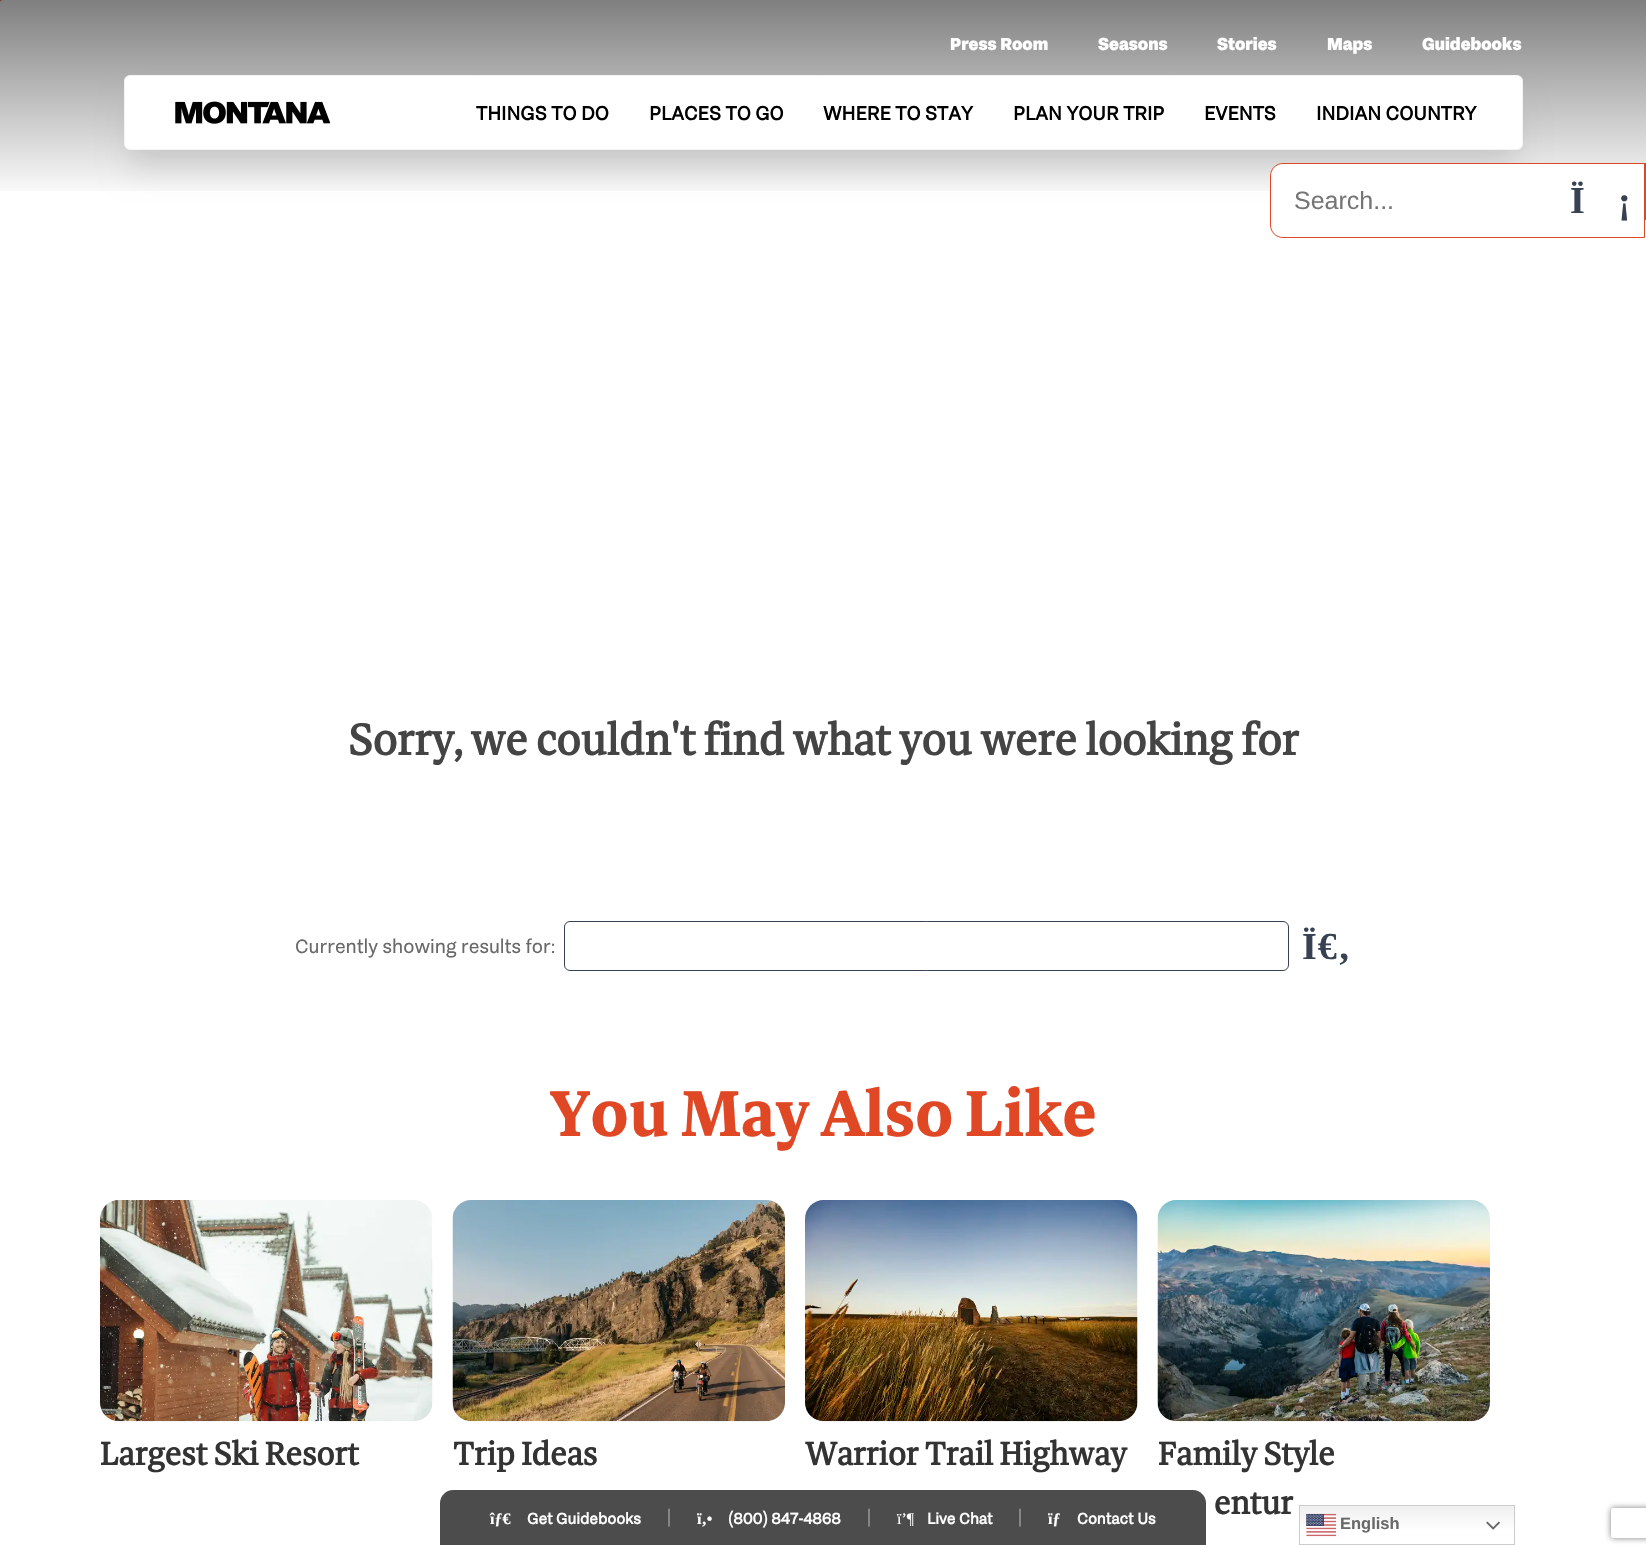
#include "include/core/SkBlurTypes.h"
#include "include/core/SkCanvas.h"
#include "include/core/SkData.h"
#include "include/core/SkFont.h"
#include "include/core/SkFontMgr.h"
#include "include/core/SkImage.h"
#include "include/core/SkMaskFilter.h"
#include "include/core/SkPaint.h"
#include "include/core/SkPathBuilder.h"
#include "include/core/SkTextBlob.h"
#include "include/effects/SkDashPathEffect.h"
#include "include/effects/SkGradientShader.h"
#include "include/utils/SkParsePath.h"

extern sk_sp<SkFontMgr> fontMgr;

void draw(SkCanvas* canvas) {
  SkPaint p;
  p.setAntiAlias(true);
  auto spacedText = [&](const char* s, float x, float y, const SkFont& font, const SkPaint& ink, float letter, float word) {
    std::vector<SkGlyphID> glyphs(font.countText(s, strlen(s), SkTextEncoding::kUTF8));
    std::vector<float> xs(glyphs.size());
    font.textToGlyphs(s, strlen(s), SkTextEncoding::kUTF8, glyphs);
    font.getXPos(glyphs, xs, x);
    float extra = 0;
    for (size_t i = 0; i < glyphs.size(); i++) {
      xs[i] += extra;
      extra += letter + word * (glyphs[i] == font.unicharToGlyph(' '));
    }
    canvas->drawTextBlob(SkTextBlob::MakeFromPosHGlyphs(glyphs, xs, y, font), 0, 0, ink);
  };
  canvas->clear(SK_ColorWHITE);
  canvas->drawImageRect(SkImages::DeferredFromEncodedData(SkData::MakeFromFileName("images/1.png")), SkRect::MakeLTRB(0, 0, 2, 2), SkSamplingOptions());
  {
    const SkColor colors[] = {SkColorSetARGB(128, 0, 0, 0), SkColorSetARGB(0, 0, 0, 0)};
    const float stops[] = {0, 1};
    const SkPoint ends[] = {{823, 0}, {823, 200}};
    p.setShader(SkGradientShader::MakeLinear(ends, colors, stops, 2, SkTileMode::kClamp));
    p.setAlpha(255);
  }
  canvas->drawRect(SkRect::MakeLTRB(0, 0, 1646, 191), p);
  p.setShader(nullptr);
  p.setColor(SkColorSetARGB(26, 0, 0, 0));
  p.setMaskFilter(SkMaskFilter::MakeBlur(kNormal_SkBlurStyle, 15.5f));
  canvas->drawRect(SkRect::MakeLTRB(130, 106, 1516, 169), p);
  p.setMaskFilter(nullptr);
  p.setColor(SK_ColorWHITE);
  canvas->drawRoundRect(SkRect::MakeLTRB(124.5f, 75.5f, 1522.5f, 149.5f), 5.5f, 5.5f, p);
  p.setStyle(SkPaint::kStroke_Style);
  p.setStrokeWidth(1);
  p.setColor(SkColorSetRGB(243, 244, 246));
  canvas->drawRoundRect(SkRect::MakeLTRB(124.5f, 75.5f, 1522.5f, 149.5f), 5.5f, 5.5f, p);
  canvas->drawImageRect(SkImages::DeferredFromEncodedData(SkData::MakeFromFileName("images/2.png")), SkRect::MakeLTRB(175, 101, 330, 124), SkSamplingOptions());
  p.setColor(SkColorSetRGB(58, 121, 178));
  canvas->drawRect(SkRect::MakeLTRB(1590.5f, 163.5f, 1645.5f, 219.5f), p);
  p.setStyle(SkPaint::kFill_Style);
  p.setColor(SK_ColorWHITE);
  canvas->drawPath(SkPathBuilder().moveTo(1283, 163.5f).lineTo(1644.5f, 163.5f).lineTo(1644.5f, 237.5f).lineTo(1283, 237.5f).cubicTo(1276, 237.5f, 1270.5f, 232, 1270.5f, 225).lineTo(1270.5f, 176).cubicTo(1270.5f, 169, 1276, 163.5f, 1283, 163.5f).close().detach(), p);
  p.setStyle(SkPaint::kStroke_Style);
  p.setColor(SkColorSetRGB(224, 71, 36));
  canvas->drawPath(SkPathBuilder().moveTo(1283, 163.5f).lineTo(1644.5f, 163.5f).lineTo(1644.5f, 237.5f).lineTo(1283, 237.5f).cubicTo(1276, 237.5f, 1270.5f, 232, 1270.5f, 225).lineTo(1270.5f, 176).cubicTo(1270.5f, 169, 1276, 163.5f, 1283, 163.5f).close().detach(), p);
  p.setColor(SkColorSetRGB(55, 65, 81));
  canvas->drawRoundRect(SkRect::MakeLTRB(564.5f, 921.5f, 1288.5f, 970.5f), 5.5f, 5.5f, p);
  canvas->drawImageRect(SkImages::DeferredFromEncodedData(SkData::MakeFromFileName("images/3.png")), SkRect::MakeLTRB(100, 1200, 433, 1422), SkSamplingOptions());
  canvas->drawImageRect(SkImages::DeferredFromEncodedData(SkData::MakeFromFileName("images/4.png")), SkRect::MakeLTRB(452, 1200, 785, 1422), SkSamplingOptions());
  canvas->drawImageRect(SkImages::DeferredFromEncodedData(SkData::MakeFromFileName("images/5.png")), SkRect::MakeLTRB(805, 1200, 1138, 1422), SkSamplingOptions());
  canvas->drawImageRect(SkImages::DeferredFromEncodedData(SkData::MakeFromFileName("images/6.png")), SkRect::MakeLTRB(1157, 1200, 1490, 1422), SkSamplingOptions());
  p.setStyle(SkPaint::kFill_Style);
  p.setColor(SkColorSetARGB(179, 0, 0, 0));
  canvas->drawPath(SkPathBuilder().moveTo(453, 1490).lineTo(1193, 1490).cubicTo(1200, 1490, 1206, 1496, 1206, 1503).lineTo(1206, 1545).lineTo(440, 1545).lineTo(440, 1503).cubicTo(440, 1496, 446, 1490, 453, 1490).close().detach(), p);
  {
    const SkColor colors[] = {SkColorSetRGB(239, 239, 239), SK_ColorWHITE};
    const float stops[] = {0, 0.7f};
    const SkPoint ends[] = {{1407, 1505}, {1407, 1545}};
    p.setShader(SkGradientShader::MakeLinear(ends, colors, stops, 2, SkTileMode::kClamp));
    p.setAlpha(255);
  }
  canvas->drawRect(SkRect::MakeLTRB(1300, 1506, 1514, 1529), p);
  p.setStyle(SkPaint::kStroke_Style);
  p.setShader(nullptr);
  p.setColor(SkColorSetRGB(204, 204, 204));
  canvas->drawRect(SkRect::MakeLTRB(1299.5f, 1505.5f, 1514.5f, 1544.5f), p);
  canvas->drawImageRect(SkImages::DeferredFromEncodedData(SkData::MakeFromFileName("images/7.png")), SkRect::MakeLTRB(1306, 1513, 1336, 1537), SkSamplingOptions());
  canvas->drawImageRect(SkImages::DeferredFromEncodedData(SkData::MakeFromFileName("images/8.png")), SkRect::MakeLTRB(1486, 1521, 1500, 1530), SkSamplingOptions());
  canvas->save();
  canvas->clipPath(SkPathBuilder(SkPathFillType::kEvenOdd).moveTo(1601, 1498).lineTo(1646, 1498).lineTo(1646, 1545).lineTo(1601, 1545).close().moveTo(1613.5f, 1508).lineTo(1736.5f, 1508).cubicTo(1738, 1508, 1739, 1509, 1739, 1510.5f).lineTo(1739, 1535.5f).cubicTo(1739, 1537, 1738, 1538, 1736.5f, 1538).lineTo(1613.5f, 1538).cubicTo(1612, 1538, 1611, 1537, 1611, 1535.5f).lineTo(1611, 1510.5f).cubicTo(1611, 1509, 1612, 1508, 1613.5f, 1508).close().detach(), true);
  p.setStyle(SkPaint::kFill_Style);
  p.setColor(SkColorSetRGB(128, 128, 128));
  p.setMaskFilter(SkMaskFilter::MakeBlur(kNormal_SkBlurStyle, 3));
  canvas->drawRoundRect(SkRect::MakeLTRB(1611, 1508, 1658, 1538), 2.5f, 2.5f, p);
  p.setMaskFilter(nullptr);
  canvas->restore();
  SkFont font1(fontMgr->matchFamilyStyle("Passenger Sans", SkFontStyle(900, SkFontStyle::kNormal_Width, SkFontStyle::kUpright_Slant)), 18);
  font1.setSubpixel(true);
  p.setColor(SK_ColorWHITE);
  canvas->drawString("Press Room", 950, 50, font1, p);
  canvas->drawString("Seasons", 1098, 50, font1, p);
  canvas->drawString("Stories", 1217, 50, font1, p);
  canvas->drawString("Maps", 1327, 50, font1, p);
  canvas->drawString("Guidebooks", 1422, 50, font1, p);
  SkFont font2(fontMgr->matchFamilyStyle("Passenger Sans", SkFontStyle::Bold()), 20);
  font2.setSubpixel(true);
  p.setColor(SK_ColorBLACK);
  canvas->drawString("THINGS TO DO", 476, 120, font2, p);
  canvas->drawString("PLACES TO GO", 649, 120, font2, p);
  canvas->drawString("WHERE TO STAY", 823, 120, font2, p);
  canvas->drawString("PLAN YOUR TRIP", 1013, 120, font2, p);
  canvas->drawString("EVENTS", 1204, 120, font2, p);
  canvas->drawString("INDIAN COUNTRY", 1316, 120, font2, p);
  SkFont font3(fontMgr->matchFamilyStyle("Liberation Sans", SkFontStyle::Normal()), 25);
  font3.setSubpixel(true);
  p.setColor(SkColorSetRGB(117, 117, 117));
  canvas->drawString("Search...", 1294, 209, font3, p);
  SkFont font4(fontMgr->matchFamilyStyle("Liberation Serif", SkFontStyle::Bold()), 38);
  font4.setSubpixel(true);
  p.setColor(SkColorSetRGB(55, 65, 81));
  spacedText("Ï", 1570, 213, font4, p, 1, 0);
  spacedText("¡", 1618, 213, font4, p, 1, 0);
  SkFont font5(fontMgr->matchFamilyStyle("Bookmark", SkFontStyle::Bold()), 44);
  font5.setSubpixel(true);
  p.setColor(SkColorSetRGB(68, 68, 68));
  canvas->drawString("Sorry, we couldn't find what you were looking for", 348, 755, font5, p);
  SkFont font6(fontMgr->matchFamilyStyle("Passenger Sans", SkFontStyle::Normal()), 20);
  font6.setSubpixel(true);
  p.setColor(SkColorSetRGB(105, 105, 105));
  canvas->drawString("Currently showing results for:", 295, 953, font6, p);
  p.setColor(SkColorSetRGB(55, 65, 81));
  spacedText("Ï€‚", 1302, 959, font4, p, 1, 0);
  SkFont font7(fontMgr->matchFamilyStyle("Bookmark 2", SkFontStyle::Bold()), 64.75f);
  font7.setSubpixel(true);
  p.setColor(SkColorSetRGB(224, 71, 36));
  canvas->drawString("You May Also Like", 550, 1136, font7, p);
  SkFont font8(fontMgr->matchFamilyStyle("Bookmark", SkFontStyle::Bold()), 32.4f);
  font8.setSubpixel(true);
  p.setColor(SkColorSetRGB(51, 51, 51));
  canvas->drawString("Largest Ski Resort", 100, 1465, font8, p);
  canvas->drawString("Trip Ideas", 453, 1465, font8, p);
  canvas->drawString("Warrior Trail Highway", 805, 1465, font8, p);
  canvas->drawString("Family Style", 1158, 1465, font8, p);
  canvas->drawString("entur", 1214, 1514, font8, p);
  SkFont font9(fontMgr->matchFamilyStyle("Liberation Serif", SkFontStyle::Bold()), 16);
  font9.setSubpixel(true);
  p.setColor(SK_ColorWHITE);
  canvas->drawString("îƒ€", 490, 1524, font9, p);
  SkFont font10(fontMgr->matchFamilyStyle("Passenger Sans", SkFontStyle::Bold()), 16);
  font10.setSubpixel(true);
  canvas->drawString("Get Guidebooks", 527, 1524, font10, p);
  p.setColor(SkColorSetRGB(150, 150, 150));
  canvas->drawString("|", 666, 1524, font6, p);
  p.setColor(SK_ColorWHITE);
  canvas->drawString("ï‚•", 697, 1524, font9, p);
  canvas->drawString("(800) 847-4868", 728, 1524, font10, p);
  p.setColor(SkColorSetRGB(150, 150, 150));
  canvas->drawString("|", 866, 1524, font6, p);
  SkFont font11(fontMgr->matchFamilyStyle("Liberation Serif", SkFontStyle::Normal()), 16);
  font11.setSubpixel(true);
  p.setColor(SK_ColorWHITE);
  canvas->drawString("ï’¶", 897, 1524, font11, p);
  canvas->drawString("Live Chat", 927, 1524, font10, p);
  p.setColor(SkColorSetRGB(150, 150, 150));
  canvas->drawString("|", 1017, 1524, font6, p);
  p.setColor(SK_ColorWHITE);
  canvas->drawString("ïƒ", 1048, 1524, font9, p);
  canvas->drawString("Contact Us", 1077, 1524, font10, p);
  SkFont font12(fontMgr->matchFamilyStyle("Liberation Sans", SkFontStyle::Bold()), 16.5f);
  font12.setSubpixel(true);
  p.setColor(SkColorSetRGB(105, 105, 105));
  canvas->drawString("English", 1340, 1529, font12, p);
}
